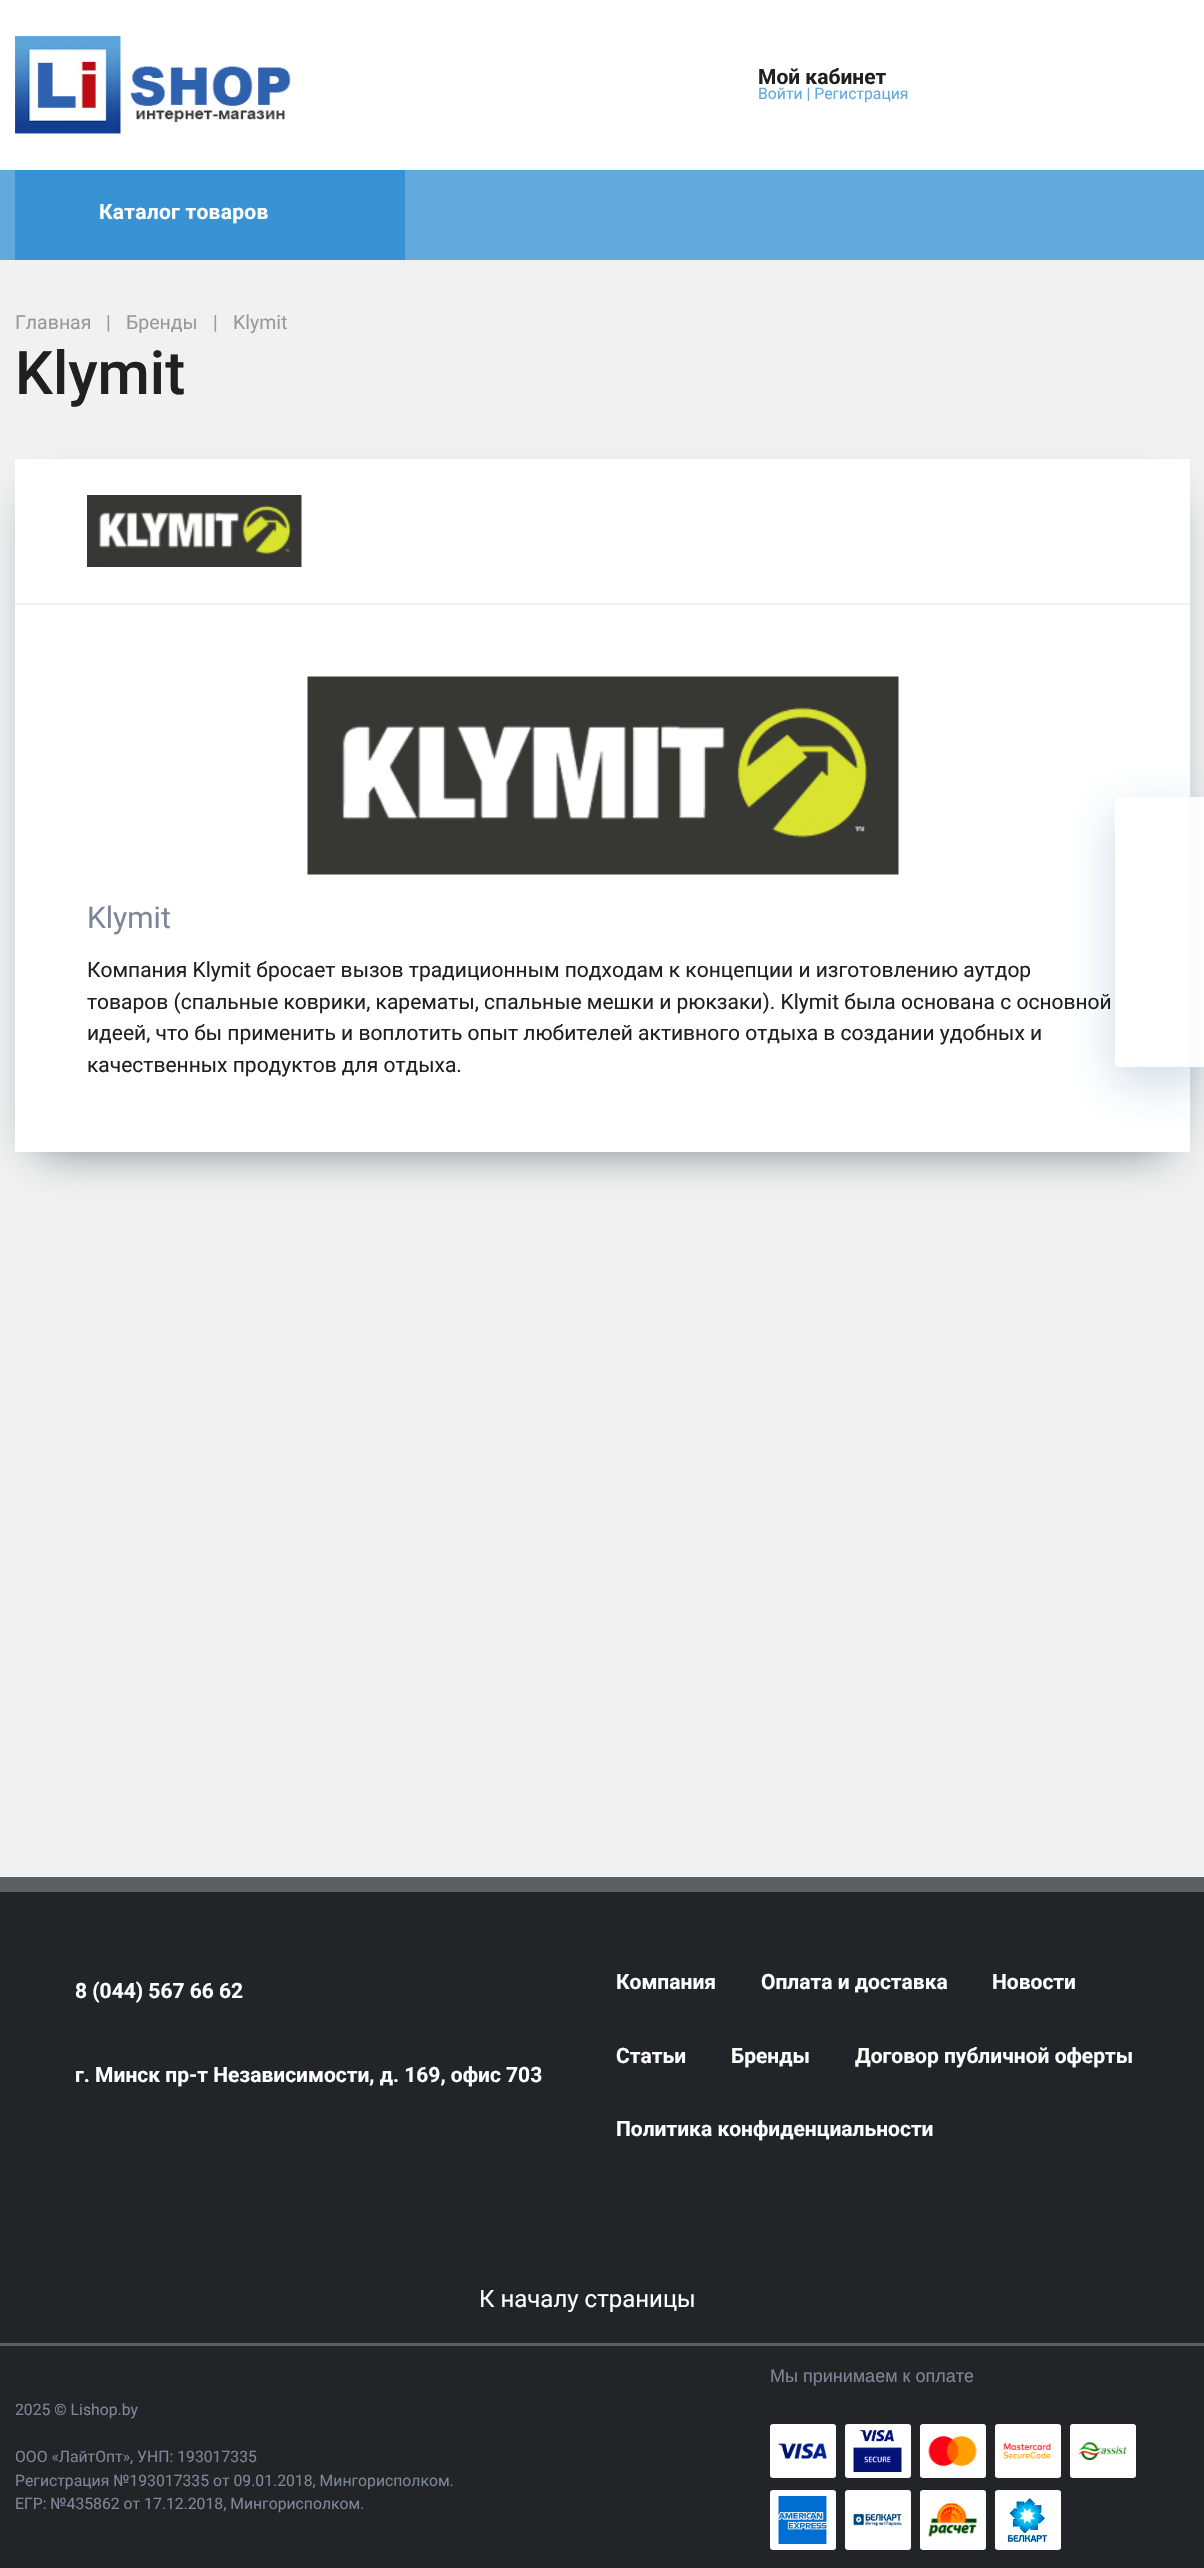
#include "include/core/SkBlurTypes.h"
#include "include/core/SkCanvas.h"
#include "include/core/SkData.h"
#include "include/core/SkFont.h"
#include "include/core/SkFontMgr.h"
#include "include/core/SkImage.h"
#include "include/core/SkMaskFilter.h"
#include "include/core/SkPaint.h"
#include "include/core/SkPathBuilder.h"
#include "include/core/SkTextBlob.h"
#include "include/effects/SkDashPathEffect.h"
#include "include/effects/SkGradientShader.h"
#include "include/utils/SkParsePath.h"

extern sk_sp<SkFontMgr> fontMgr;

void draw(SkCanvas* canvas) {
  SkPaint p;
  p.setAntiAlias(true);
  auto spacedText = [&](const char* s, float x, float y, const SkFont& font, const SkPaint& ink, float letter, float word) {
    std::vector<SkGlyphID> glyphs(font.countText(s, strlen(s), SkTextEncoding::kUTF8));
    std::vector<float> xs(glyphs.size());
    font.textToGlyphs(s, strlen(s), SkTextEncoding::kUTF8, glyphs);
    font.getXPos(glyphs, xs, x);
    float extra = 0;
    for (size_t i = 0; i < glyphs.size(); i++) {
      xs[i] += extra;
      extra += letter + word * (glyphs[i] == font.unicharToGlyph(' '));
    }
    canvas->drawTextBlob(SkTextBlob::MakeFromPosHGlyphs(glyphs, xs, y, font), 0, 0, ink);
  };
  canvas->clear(SkColorSetRGB(241, 241, 241));
  p.setColor(SK_ColorWHITE);
  canvas->drawRect(SkRect::MakeLTRB(0, 0, 1204, 170), p);
  canvas->drawImageRect(SkImages::DeferredFromEncodedData(SkData::MakeFromFileName("images/1.png")), SkRect::MakeLTRB(15, 36, 296, 134), SkSamplingOptions());
  p.setColor(SkColorSetRGB(99, 169, 220));
  canvas->drawRect(SkRect::MakeLTRB(0, 170, 1204, 260), p);
  p.setColor(SkColorSetRGB(57, 146, 211));
  canvas->drawRect(SkRect::MakeLTRB(15, 170, 405, 260), p);
  p.setColor(SkColorSetARGB(191, 61, 72, 81));
  p.setMaskFilter(SkMaskFilter::MakeBlur(kNormal_SkBlurStyle, 22.5f));
  canvas->drawRect(SkRect::MakeLTRB(38, 500, 1167, 1148), p);
  p.setMaskFilter(nullptr);
  p.setColor(SK_ColorWHITE);
  canvas->drawRect(SkRect::MakeLTRB(15, 459, 1190, 603), p);
  p.setColor(SkColorSetRGB(241, 241, 241));
  canvas->drawRect(SkRect::MakeLTRB(15, 603, 1190, 605), p);
  canvas->drawImageRect(SkImages::DeferredFromEncodedData(SkData::MakeFromFileName("images/2.png")), SkRect::MakeLTRB(87, 495, 302, 567), SkSamplingOptions());
  p.setColor(SK_ColorWHITE);
  canvas->drawRect(SkRect::MakeLTRB(15, 605, 1190, 1152), p);
  canvas->drawImageRect(SkImages::DeferredFromEncodedData(SkData::MakeFromFileName("images/3.png")), SkRect::MakeLTRB(307, 676, 899, 875), SkSamplingOptions());
  p.setColor(SkColorSetRGB(34, 36, 40));
  canvas->drawRect(SkRect::MakeLTRB(0, 1892, 1204, 2568), p);
  p.setColor(SkColorSetRGB(94, 95, 97));
  canvas->drawRect(SkRect::MakeLTRB(0, 1877, 1204, 1892), p);
  canvas->drawRect(SkRect::MakeLTRB(0, 2343, 1204, 2346), p);
  p.setColor(SK_ColorWHITE);
  canvas->drawRoundRect(SkRect::MakeLTRB(770, 2424, 836, 2478), 3, 3, p);
  canvas->drawImageRect(SkImages::DeferredFromEncodedData(SkData::MakeFromFileName("images/4.png")), SkRect::MakeLTRB(778, 2443, 827, 2459), SkSamplingOptions());
  canvas->drawRoundRect(SkRect::MakeLTRB(845, 2424, 911, 2478), 3, 3, p);
  canvas->drawImageRect(SkImages::DeferredFromEncodedData(SkData::MakeFromFileName("images/5.png")), SkRect::MakeLTRB(853, 2430, 902, 2472), SkSamplingOptions());
  canvas->drawRoundRect(SkRect::MakeLTRB(920, 2424, 986, 2478), 3, 3, p);
  canvas->drawImageRect(SkImages::DeferredFromEncodedData(SkData::MakeFromFileName("images/6.png")), SkRect::MakeLTRB(928, 2436, 977, 2466), SkSamplingOptions());
  canvas->drawRoundRect(SkRect::MakeLTRB(995, 2424, 1061, 2478), 3, 3, p);
  canvas->drawImageRect(SkImages::DeferredFromEncodedData(SkData::MakeFromFileName("images/7.png")), SkRect::MakeLTRB(1003, 2443, 1052, 2459), SkSamplingOptions());
  canvas->drawRoundRect(SkRect::MakeLTRB(1070, 2424, 1136, 2478), 3, 3, p);
  canvas->drawImageRect(SkImages::DeferredFromEncodedData(SkData::MakeFromFileName("images/8.png")), SkRect::MakeLTRB(1078, 2442, 1127, 2460), SkSamplingOptions());
  canvas->drawRoundRect(SkRect::MakeLTRB(770, 2490, 836, 2550), 3, 3, p);
  canvas->drawImageRect(SkImages::DeferredFromEncodedData(SkData::MakeFromFileName("images/9.png")), SkRect::MakeLTRB(778, 2496, 827, 2544), SkSamplingOptions());
  canvas->drawRoundRect(SkRect::MakeLTRB(845, 2490, 911, 2550), 3, 3, p);
  canvas->drawImageRect(SkImages::DeferredFromEncodedData(SkData::MakeFromFileName("images/10.png")), SkRect::MakeLTRB(853, 2514, 902, 2526), SkSamplingOptions());
  canvas->drawRoundRect(SkRect::MakeLTRB(920, 2490, 986, 2550), 3, 3, p);
  canvas->drawImageRect(SkImages::DeferredFromEncodedData(SkData::MakeFromFileName("images/11.png")), SkRect::MakeLTRB(928, 2503, 977, 2537), SkSamplingOptions());
  canvas->drawRoundRect(SkRect::MakeLTRB(995, 2490, 1061, 2550), 3, 3, p);
  canvas->drawImageRect(SkImages::DeferredFromEncodedData(SkData::MakeFromFileName("images/12.png")), SkRect::MakeLTRB(1007, 2498, 1048, 2543), SkSamplingOptions());
  canvas->save();
  canvas->clipPath(SkPathBuilder(SkPathFillType::kEvenOdd).moveTo(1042, 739).lineTo(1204, 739).lineTo(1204, 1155).lineTo(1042, 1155).close().moveTo(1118, 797).lineTo(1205, 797).lineTo(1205, 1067).lineTo(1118, 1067).cubicTo(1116.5f, 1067, 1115, 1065.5f, 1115, 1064).lineTo(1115, 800).cubicTo(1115, 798.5f, 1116.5f, 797, 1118, 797).close().detach(), true);
  p.setColor(SkColorSetARGB(77, 84, 133, 169));
  p.setMaskFilter(SkMaskFilter::MakeBlur(kNormal_SkBlurStyle, 24));
  canvas->drawRoundRect(SkRect::MakeLTRB(1115, 812, 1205, 1082), 3, 3, p);
  p.setMaskFilter(nullptr);
  canvas->restore();
  p.setColor(SkColorSetARGB(230, 255, 255, 255));
  canvas->drawPath(SkPathBuilder().moveTo(1118, 797).lineTo(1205, 797).lineTo(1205, 1067).lineTo(1118, 1067).cubicTo(1116.5f, 1067, 1115, 1065.5f, 1115, 1064).lineTo(1115, 800).cubicTo(1115, 798.5f, 1116.5f, 797, 1118, 797).close().detach(), p);
  SkFont font1(fontMgr->matchFamilyStyle("Roboto", SkFontStyle::Bold()), 21);
  font1.setSubpixel(true);
  p.setColor(SkColorSetRGB(32, 32, 32));
  canvas->drawString("Мой кабинет", 758, 84, font1, p);
  SkFont font2(fontMgr->matchFamilyStyle("Roboto", SkFontStyle::Normal()), 15.75f);
  font2.setSubpixel(true);
  p.setColor(SkColorSetRGB(99, 169, 220));
  canvas->drawString("Войти | Регистрация", 758, 99, font2, p);
  p.setColor(SK_ColorWHITE);
  spacedText("Каталог товаров", 99, 219, font1, p, 0.25f, 0);
  SkFont font3(fontMgr->matchFamilyStyle("Roboto", SkFontStyle::Normal()), 19.5f);
  font3.setSubpixel(true);
  p.setColor(SkColorSetRGB(153, 153, 153));
  canvas->drawString("Главная", 15, 329, font3, p);
  canvas->drawString("|", 106, 329, font3, p);
  canvas->drawString("Бренды", 126, 329, font3, p);
  canvas->drawString("|", 213, 329, font3, p);
  canvas->drawString("Klymit", 233, 329, font3, p);
  SkFont font4(fontMgr->matchFamilyStyle("Roboto", SkFontStyle(500, SkFontStyle::kNormal_Width, SkFontStyle::kUpright_Slant)), 60);
  font4.setSubpixel(true);
  p.setColor(SkColorSetRGB(32, 32, 32));
  canvas->drawString("Klymit", 15, 394, font4, p);
  SkFont font5(fontMgr->matchFamilyStyle("Roboto", SkFontStyle::Normal()), 30);
  font5.setSubpixel(true);
  p.setColor(SkColorSetRGB(125, 134, 152));
  canvas->drawString("Klymit", 87, 928, font5, p);
  SkFont font6(fontMgr->matchFamilyStyle("Roboto", SkFontStyle::Normal()), 21);
  font6.setSubpixel(true);
  p.setColor(SkColorSetRGB(32, 32, 32));
  canvas->drawString("Компания Klymit бросает вызов традиционным подходам к концепции и изготовлению аутдор", 87, 977, font6, p);
  canvas->drawString("товаров (спальные коврики, карематы, спальные мешки и рюкзаки). Klymit была основана с основной", 87, 1009, font6, p);
  canvas->drawString("идеей, что бы применить и воплотить опыт любителей активного отдыха в создании удобных и", 87, 1040, font6, p);
  canvas->drawString("качественных продуктов для отдыха.", 87, 1072, font6, p);
  p.setColor(SK_ColorWHITE);
  canvas->drawString("8 (044) 567 66 62", 75, 1998, font1, p);
  canvas->drawString("г. Минск пр-т Независимости, д. 169, офис 703", 75, 2082, font1, p);
  canvas->drawString("Компания", 616, 1989, font1, p);
  canvas->drawString("Оплата и доставка", 761, 1989, font1, p);
  canvas->drawString("Новости", 992, 1989, font1, p);
  canvas->drawString("Статьи", 616, 2063, font1, p);
  canvas->drawString("Бренды", 731, 2063, font1, p);
  canvas->drawString("Договор публичной оферты", 855, 2063, font1, p);
  canvas->drawString("Политика конфиденциальности", 616, 2136, font1, p);
  SkFont font7(fontMgr->matchFamilyStyle("Roboto", SkFontStyle::Normal()), 24);
  font7.setSubpixel(true);
  canvas->drawString("К началу страницы", 479, 2307, font7, p);
  SkFont font8(fontMgr->matchFamilyStyle("Liberation Sans", SkFontStyle::Normal()), 18);
  font8.setSubpixel(true);
  p.setColor(SkColorSetRGB(125, 134, 152));
  canvas->drawString("Мы принимаем к оплате", 770, 2382, font8, p);
  canvas->drawString("2025 © Lishop.by", 15, 2415, font2, p);
  canvas->drawString("ООО «ЛайтОпт», УНП: 193017335", 15, 2462, font2, p);
  canvas->drawString("Регистрация №193017335 от 09.01.2018, Мингорисполком.", 15, 2486, font2, p);
  canvas->drawString("ЕГР: №435862 от 17.12.2018, Мингорисполком.", 15, 2509, font2, p);
}
